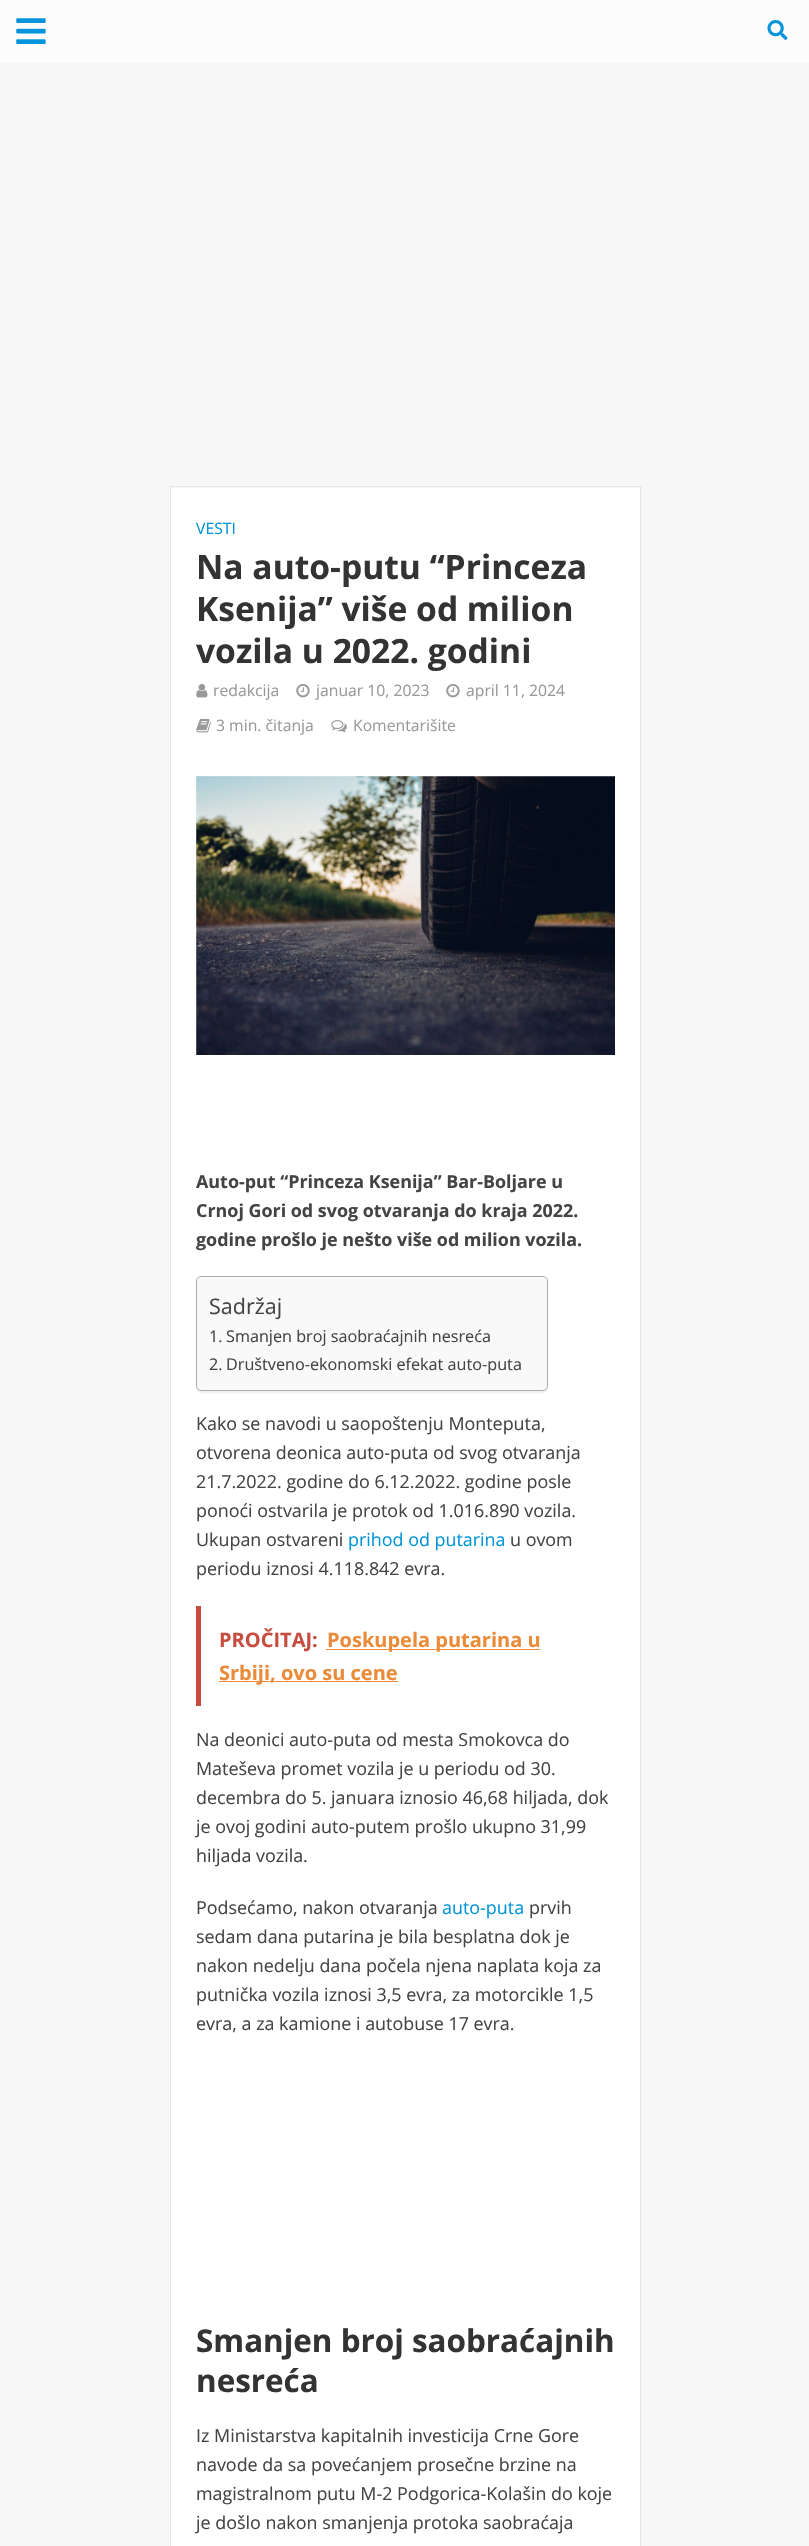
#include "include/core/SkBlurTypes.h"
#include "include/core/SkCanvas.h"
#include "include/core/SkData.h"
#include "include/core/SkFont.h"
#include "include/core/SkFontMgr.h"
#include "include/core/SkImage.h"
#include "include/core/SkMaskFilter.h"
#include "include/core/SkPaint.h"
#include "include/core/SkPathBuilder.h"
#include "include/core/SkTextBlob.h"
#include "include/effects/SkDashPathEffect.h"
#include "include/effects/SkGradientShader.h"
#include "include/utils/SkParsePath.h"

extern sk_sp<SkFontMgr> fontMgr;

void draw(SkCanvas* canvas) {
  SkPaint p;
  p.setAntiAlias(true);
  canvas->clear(SkColorSetRGB(247, 247, 247));
  p.setColor(SkColorSetRGB(252, 252, 252));
  canvas->drawRect(SkRect::MakeLTRB(0, 0, 809, 63), p);
  canvas->drawImageRect(SkImages::DeferredFromEncodedData(SkData::MakeFromFileName("images/1.png")), SkRect::MakeLTRB(16, 18, 46, 44), SkSamplingOptions());
  canvas->drawImageRect(SkImages::DeferredFromEncodedData(SkData::MakeFromFileName("images/2.png")), SkRect::MakeLTRB(767, 20, 788, 40), SkSamplingOptions());
  p.setStyle(SkPaint::kStroke_Style);
  p.setStrokeWidth(1);
  p.setColor(SkColorSetRGB(229, 229, 229));
  canvas->drawRect(SkRect::MakeLTRB(170.5f, 486.5f, 640.5f, 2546.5f), p);
  p.setStyle(SkPaint::kFill_Style);
  p.setColor(SK_ColorWHITE);
  canvas->drawRect(SkRect::MakeLTRB(171, 488, 640, 2546), p);
  canvas->drawImageRect(SkImages::DeferredFromEncodedData(SkData::MakeFromFileName("images/3.png")), SkRect::MakeLTRB(196, 684, 208, 698), SkSamplingOptions());
  canvas->drawImageRect(SkImages::DeferredFromEncodedData(SkData::MakeFromFileName("images/4.png")), SkRect::MakeLTRB(296, 684, 310, 698), SkSamplingOptions());
  canvas->drawImageRect(SkImages::DeferredFromEncodedData(SkData::MakeFromFileName("images/4.png")), SkRect::MakeLTRB(446, 684, 460, 698), SkSamplingOptions());
  canvas->drawImageRect(SkImages::DeferredFromEncodedData(SkData::MakeFromFileName("images/5.png")), SkRect::MakeLTRB(196, 718, 211, 733), SkSamplingOptions());
  canvas->drawImageRect(SkImages::DeferredFromEncodedData(SkData::MakeFromFileName("images/6.png")), SkRect::MakeLTRB(331, 720, 347, 733), SkSamplingOptions());
  p.setColor(SkColorSetRGB(243, 243, 243));
  canvas->drawRect(SkRect::MakeLTRB(196, 776, 615, 1055), p);
  canvas->drawImageRect(SkImages::DeferredFromEncodedData(SkData::MakeFromFileName("images/7.png")), SkRect::MakeLTRB(196, 776, 615, 1055), SkSamplingOptions());
  p.setColor(SkColorSetARGB(13, 0, 0, 0));
  p.setMaskFilter(SkMaskFilter::MakeBlur(kNormal_SkBlurStyle, 0.5f));
  canvas->drawRoundRect(SkRect::MakeLTRB(196, 1278, 548, 1393), 5, 5, p);
  p.setMaskFilter(nullptr);
  p.setColor(SkColorSetRGB(249, 249, 249));
  canvas->drawRoundRect(SkRect::MakeLTRB(196.5f, 1276.5f, 547.5f, 1390.5f), 4.5f, 4.5f, p);
  p.setStyle(SkPaint::kStroke_Style);
  p.setColor(SkColorSetRGB(170, 170, 170));
  canvas->drawRoundRect(SkRect::MakeLTRB(196.5f, 1276.5f, 547.5f, 1390.5f), 4.5f, 4.5f, p);
  p.setStyle(SkPaint::kFill_Style);
  p.setColor(SkColorSetRGB(198, 77, 64));
  canvas->drawRect(SkRect::MakeLTRB(196, 1606, 201, 1706), p);
  p.setColor(SkColorSetRGB(233, 139, 56));
  canvas->drawRect(SkRect::MakeLTRB(326, 1649, 540, 1650), p);
  canvas->drawRect(SkRect::MakeLTRB(219, 1681, 398, 1682), p);
  SkFont font1(fontMgr->matchFamilyStyle("Open Sans", SkFontStyle::Normal()), 15.75f);
  font1.setSubpixel(true);
  p.setColor(SkColorSetRGB(0, 149, 218));
  canvas->drawString("VESTI", 196, 534, font1, p);
  SkFont font2(fontMgr->matchFamilyStyle("Open Sans", SkFontStyle::Bold()), 33.6f);
  font2.setSubpixel(true);
  p.setColor(SkColorSetRGB(51, 51, 51));
  canvas->drawString("Na auto-putu “Princeza", 196, 579, font2, p);
  canvas->drawString("Ksenija” više od milion", 196, 621, font2, p);
  canvas->drawString("vozila u 2022. godini", 196, 663, font2, p);
  p.setColor(SkColorSetRGB(153, 153, 153));
  canvas->drawString("redakcija", 213, 696, font1, p);
  canvas->drawString("januar 10, 2023", 316, 696, font1, p);
  canvas->drawString("april 11, 2024", 466, 696, font1, p);
  canvas->drawString("3 min. čitanja", 216, 731, font1, p);
  canvas->drawString("Komentarišite", 353, 731, font1, p);
  SkFont font3(fontMgr->matchFamilyStyle("Open Sans", SkFontStyle::Bold()), 17.9f);
  font3.setSubpixel(true);
  p.setColor(SkColorSetRGB(68, 68, 68));
  canvas->drawString("Auto-put “Princeza Ksenija” Bar-Boljare u", 196, 1188, font3, p);
  canvas->drawString("Crnoj Gori od svog otvaranja do kraja 2022.", 196, 1217, font3, p);
  canvas->drawString("godine prošlo je nešto više od milion vozila.", 196, 1246, font3, p);
  SkFont font4(fontMgr->matchFamilyStyle("Open Sans", SkFontStyle::Normal()), 21.5f);
  font4.setSubpixel(true);
  canvas->drawString("Sadržaj", 209, 1314, font4, p);
  SkFont font5(fontMgr->matchFamilyStyle("Open Sans", SkFontStyle::Normal()), 16.2f);
  font5.setSubpixel(true);
  canvas->drawString("1.", 209, 1342, font5, p);
  canvas->drawString("Smanjen broj saobraćajnih nesreća", 226, 1342, font5, p);
  canvas->drawString("2.", 209, 1370, font5, p);
  canvas->drawString("Društveno-ekonomski efekat auto-puta", 226, 1370, font5, p);
  SkFont font6(fontMgr->matchFamilyStyle("Open Sans", SkFontStyle::Normal()), 17.9f);
  font6.setSubpixel(true);
  canvas->drawString("Kako se navodi u saopoštenju Monteputa,", 196, 1430, font6, p);
  canvas->drawString("otvorena deonica auto-puta od svog otvaranja", 196, 1459, font6, p);
  canvas->drawString("21.7.2022. godine do 6.12.2022. godine posle", 196, 1488, font6, p);
  canvas->drawString("ponoći ostvarila je protok od 1.016.890 vozila.", 196, 1517, font6, p);
  canvas->drawString("Ukupan ostvareni", 196, 1546, font6, p);
  p.setColor(SkColorSetRGB(0, 149, 218));
  canvas->drawString("prihod od putarina", 348, 1546, font6, p);
  p.setColor(SkColorSetRGB(68, 68, 68));
  canvas->drawString("u ovom", 510, 1546, font6, p);
  canvas->drawString("periodu iznosi 4.118.842 evra.", 196, 1575, font6, p);
  SkFont font7(fontMgr->matchFamilyStyle("Open Sans", SkFontStyle::Bold()), 20);
  font7.setSubpixel(true);
  p.setColor(SkColorSetRGB(198, 77, 64));
  canvas->drawString("PROČITAJ:", 219, 1647, font7, p);
  p.setColor(SkColorSetRGB(233, 139, 56));
  canvas->drawString("Poskupela putarina u", 327, 1647, font7, p);
  canvas->drawString("Srbiji, ovo su cene", 219, 1680, font7, p);
  p.setColor(SkColorSetRGB(68, 68, 68));
  canvas->drawString("Na deonici auto-puta od mesta Smokovca do", 196, 1746, font6, p);
  canvas->drawString("Mateševa promet vozila je u periodu od 30.", 196, 1775, font6, p);
  canvas->drawString("decembra do 5. januara iznosio 46,68 hiljada, dok", 196, 1804, font6, p);
  canvas->drawString("je ovoj godini auto-putem prošlo ukupno 31,99", 196, 1833, font6, p);
  canvas->drawString("hiljada vozila.", 196, 1862, font6, p);
  canvas->drawString("Podsećamo, nakon otvaranja", 196, 1914, font6, p);
  p.setColor(SkColorSetRGB(0, 149, 218));
  canvas->drawString("auto-puta", 442, 1914, font6, p);
  p.setColor(SkColorSetRGB(68, 68, 68));
  canvas->drawString("prvih", 529, 1914, font6, p);
  canvas->drawString("sedam dana putarina je bila besplatna dok je", 196, 1943, font6, p);
  canvas->drawString("nakon nedelju dana počela njena naplata koja za", 196, 1972, font6, p);
  canvas->drawString("putnička vozila iznosi 3,5 evra, za motorcikle 1,5", 196, 2001, font6, p);
  canvas->drawString("evra, a za kamione i autobuse 17 evra.", 196, 2030, font6, p);
  SkFont font8(fontMgr->matchFamilyStyle("Open Sans", SkFontStyle::Bold()), 31.4f);
  font8.setSubpixel(true);
  p.setColor(SkColorSetRGB(51, 51, 51));
  canvas->drawString("Smanjen broj saobraćajnih", 196, 2352, font8, p);
  canvas->drawString("nesreća", 196, 2392, font8, p);
  p.setColor(SkColorSetRGB(68, 68, 68));
  canvas->drawString("Iz Ministarstva kapitalnih investicija Crne Gore", 196, 2442, font6, p);
  canvas->drawString("navode da sa povećanjem prosečne brzine na", 196, 2471, font6, p);
  canvas->drawString("magistralnom putu M-2 Podgorica-Kolašin do koje", 196, 2500, font6, p);
  canvas->drawString("je došlo nakon smanjenja protoka saobraćaja", 196, 2529, font6, p);
}
